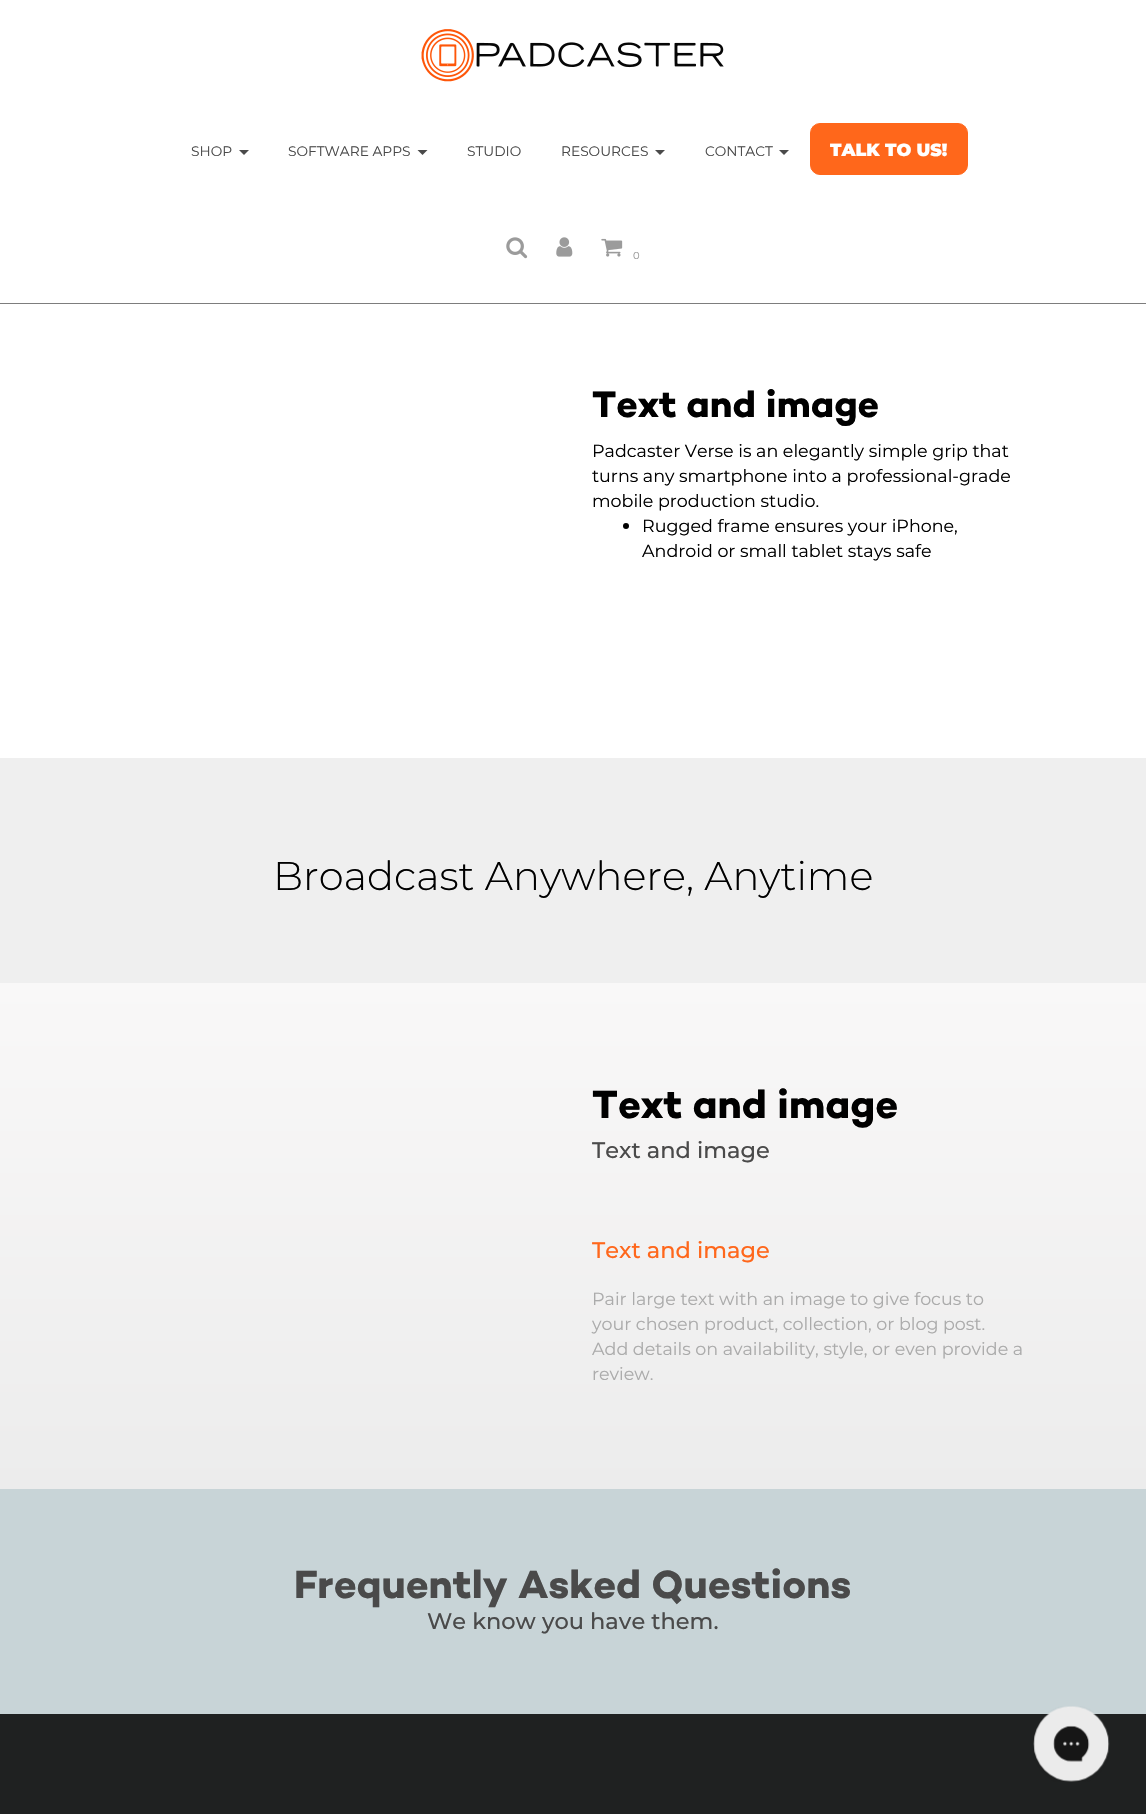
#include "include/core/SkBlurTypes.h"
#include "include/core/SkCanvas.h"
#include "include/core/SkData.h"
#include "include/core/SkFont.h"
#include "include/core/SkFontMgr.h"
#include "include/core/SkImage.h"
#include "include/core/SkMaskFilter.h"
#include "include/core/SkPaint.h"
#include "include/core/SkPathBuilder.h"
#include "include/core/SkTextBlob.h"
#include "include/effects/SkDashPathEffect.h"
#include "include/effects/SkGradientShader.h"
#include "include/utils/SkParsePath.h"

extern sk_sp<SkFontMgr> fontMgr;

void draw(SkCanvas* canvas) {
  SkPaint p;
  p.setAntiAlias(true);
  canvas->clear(SK_ColorWHITE);
  p.setColor(SkColorSetRGB(125, 125, 125));
  canvas->drawRect(SkRect::MakeLTRB(0, 303, 1146, 304), p);
  canvas->drawImageRect(SkImages::DeferredFromEncodedData(SkData::MakeFromFileName("images/1.png")), SkRect::MakeLTRB(421, 29, 724, 82), SkSamplingOptions());
  p.setColor(SkColorSetRGB(74, 74, 74));
  canvas->drawPath(SkPathBuilder().moveTo(239, 150).lineTo(249, 150).lineTo(244, 155).close().detach(), p);
  canvas->drawPath(SkPathBuilder().moveTo(417.5f, 150).lineTo(427.5f, 150).lineTo(422.5f, 155).close().detach(), p);
  canvas->drawPath(SkPathBuilder().moveTo(655, 150).lineTo(665, 150).lineTo(660, 155).close().detach(), p);
  canvas->drawPath(SkPathBuilder().moveTo(779, 150).lineTo(789, 150).lineTo(784, 155).close().detach(), p);
  p.setColor(SkColorSetRGB(255, 103, 27));
  canvas->drawRoundRect(SkRect::MakeLTRB(810.5f, 123.5f, 967.5f, 174.5f), 9.5f, 9.5f, p);
  p.setStyle(SkPaint::kStroke_Style);
  p.setStrokeWidth(1);
  canvas->drawRoundRect(SkRect::MakeLTRB(810.5f, 123.5f, 967.5f, 174.5f), 9.5f, 9.5f, p);
  canvas->drawImageRect(SkImages::DeferredFromEncodedData(SkData::MakeFromFileName("images/2.png")), SkRect::MakeLTRB(506, 237, 528, 259), SkSamplingOptions());
  canvas->drawImageRect(SkImages::DeferredFromEncodedData(SkData::MakeFromFileName("images/3.png")), SkRect::MakeLTRB(556, 237, 573, 257), SkSamplingOptions());
  canvas->drawImageRect(SkImages::DeferredFromEncodedData(SkData::MakeFromFileName("images/4.png")), SkRect::MakeLTRB(601, 238, 623, 257), SkSamplingOptions());
  p.setStyle(SkPaint::kFill_Style);
  p.setColor(SK_ColorBLACK);
  canvas->drawCircle(626, 526, 3, p);
  p.setColor(SkColorSetRGB(239, 239, 239));
  canvas->drawRect(SkRect::MakeLTRB(0, 758, 1146, 983), p);
  {
    const SkColor colors[] = {SkColorSetRGB(249, 248, 248), SkColorSetRGB(236, 236, 236)};
    const float stops[] = {0, 1};
    const SkPoint ends[] = {{573, 983}, {573, 1489}};
    p.setShader(SkGradientShader::MakeLinear(ends, colors, stops, 2, SkTileMode::kClamp));
    p.setAlpha(255);
  }
  canvas->drawRect(SkRect::MakeLTRB(0, 983, 1146, 1489), p);
  p.setShader(nullptr);
  p.setColor(SkColorSetRGB(200, 212, 215));
  canvas->drawRect(SkRect::MakeLTRB(0, 1489, 1146, 1714), p);
  p.setColor(SkColorSetRGB(31, 33, 33));
  canvas->drawRect(SkRect::MakeLTRB(0, 1714, 1146, 1814), p);
  canvas->drawImageRect(SkImages::DeferredFromEncodedData(SkData::MakeFromFileName("images/5.png")), SkRect::MakeLTRB(1033, 1706, 1110, 1782), SkSamplingOptions());
  SkFont font1(fontMgr->matchFamilyStyle("Montserrat", SkFontStyle::Normal()), 13.75f);
  font1.setSubpixel(true);
  p.setColor(SkColorSetRGB(74, 74, 74));
  canvas->drawString("SHOP", 191, 156, font1, p);
  canvas->drawString("SOFTWARE APPS", 288, 156, font1, p);
  canvas->drawString("STUDIO", 467, 156, font1, p);
  canvas->drawString("RESOURCES", 561, 156, font1, p);
  canvas->drawString("CONTACT", 705, 156, font1, p);
  SkFont font2(fontMgr->matchFamilyStyle("Montserrat", SkFontStyle(900, SkFontStyle::kNormal_Width, SkFontStyle::kUpright_Slant)), 17.5f);
  font2.setSubpixel(true);
  p.setColor(SK_ColorWHITE);
  canvas->drawString("TALK TO US!", 830, 156, font2, p);
  SkFont font3(fontMgr->matchFamilyStyle("Montserrat", SkFontStyle::Normal()), 10);
  font3.setSubpixel(true);
  p.setColor(SkColorSetRGB(155, 155, 155));
  canvas->drawString("0", 633, 259, font3, p);
  SkFont font4(fontMgr->matchFamilyStyle("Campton", SkFontStyle::Bold()), 37.5f);
  font4.setSubpixel(true);
  p.setColor(SK_ColorBLACK);
  canvas->drawString("Text and image", 592, 417, font4, p);
  SkFont font5(fontMgr->matchFamilyStyle("Montserrat", SkFontStyle::Normal()), 17.5f);
  font5.setSubpixel(true);
  canvas->drawString("Padcaster Verse is an elegantly simple grip that", 592, 457, font5, p);
  canvas->drawString("turns any smartphone into a professional-grade", 592, 482, font5, p);
  canvas->drawString("mobile production studio.", 592, 507, font5, p);
  canvas->drawString("Rugged frame ensures your iPhone,", 642, 532, font5, p);
  canvas->drawString("Android or small tablet stays safe", 642, 557, font5, p);
  SkFont font6(fontMgr->matchFamilyStyle("Montserrat", SkFontStyle(300, SkFontStyle::kNormal_Width, SkFontStyle::kUpright_Slant)), 40);
  font6.setSubpixel(true);
  canvas->drawString("Broadcast Anywhere, Anytime", 273, 890, font6, p);
  SkFont font7(fontMgr->matchFamilyStyle("Campton", SkFontStyle::Bold()), 40);
  font7.setSubpixel(true);
  canvas->drawString("Text and image", 592, 1118, font7, p);
  SkFont font8(fontMgr->matchFamilyStyle("Montserrat", SkFontStyle(500, SkFontStyle::kNormal_Width, SkFontStyle::kUpright_Slant)), 22.5f);
  font8.setSubpixel(true);
  p.setColor(SkColorSetRGB(74, 74, 74));
  canvas->drawString("Text and image", 592, 1158, font8, p);
  p.setColor(SkColorSetRGB(255, 103, 27));
  canvas->drawString("Text and image", 592, 1258, font8, p);
  p.setColor(SkColorSetRGB(171, 171, 171));
  canvas->drawString("Pair large text with an image to give focus to", 592, 1305, font5, p);
  canvas->drawString("your chosen product, collection, or blog post.", 592, 1330, font5, p);
  canvas->drawString("Add details on availability, style, or even provide a", 592, 1355, font5, p);
  canvas->drawString("review.", 592, 1380, font5, p);
  p.setColor(SkColorSetRGB(74, 74, 74));
  canvas->drawString("Frequently Asked Questions", 294, 1598, font7, p);
  canvas->drawString("We know you have them.", 427, 1629, font8, p);
}
